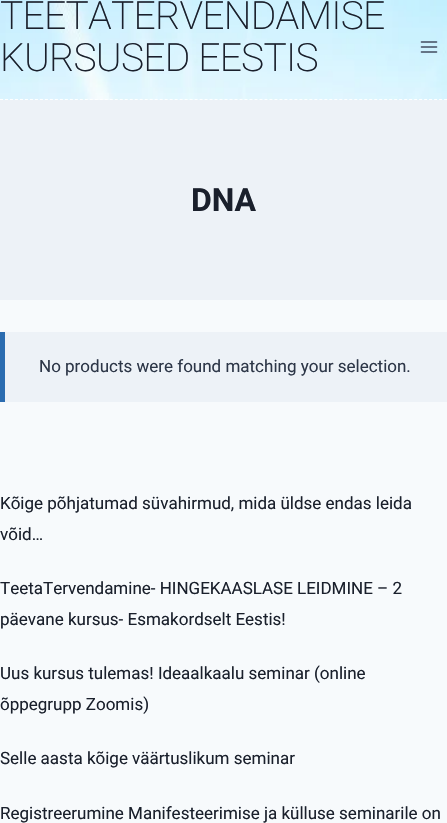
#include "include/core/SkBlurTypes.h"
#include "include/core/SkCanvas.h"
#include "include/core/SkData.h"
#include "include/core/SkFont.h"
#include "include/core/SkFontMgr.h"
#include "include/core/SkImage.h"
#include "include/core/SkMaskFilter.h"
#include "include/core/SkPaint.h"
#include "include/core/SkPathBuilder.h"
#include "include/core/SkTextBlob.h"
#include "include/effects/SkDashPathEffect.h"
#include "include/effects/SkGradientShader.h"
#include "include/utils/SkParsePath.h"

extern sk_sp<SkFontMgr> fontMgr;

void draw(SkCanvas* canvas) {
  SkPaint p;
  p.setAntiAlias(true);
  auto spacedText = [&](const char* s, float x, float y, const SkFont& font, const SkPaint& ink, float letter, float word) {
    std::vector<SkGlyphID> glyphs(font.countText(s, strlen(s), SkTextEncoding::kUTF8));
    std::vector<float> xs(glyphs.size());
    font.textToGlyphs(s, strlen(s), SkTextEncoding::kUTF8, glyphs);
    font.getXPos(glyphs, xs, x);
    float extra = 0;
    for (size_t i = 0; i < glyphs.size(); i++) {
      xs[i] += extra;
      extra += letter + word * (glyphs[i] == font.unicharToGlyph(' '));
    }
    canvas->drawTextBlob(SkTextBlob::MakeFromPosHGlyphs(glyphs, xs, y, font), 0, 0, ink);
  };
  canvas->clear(SkColorSetRGB(247, 250, 252));
  canvas->drawImageRect(SkImages::DeferredFromEncodedData(SkData::MakeFromFileName("images/1.png")), SkRect::MakeLTRB(0, 0, 447, 100), SkSamplingOptions());
  p.setStyle(SkPaint::kStroke_Style);
  p.setStrokeWidth(1);
  p.setColor(SK_ColorWHITE);
  p.setPathEffect(SkDashPathEffect::Make({{3, 1.99f}}, 0));
  canvas->drawPath(SkPathBuilder().moveTo(0, 99.5f).lineTo(447, 99.5f).detach(), p);
  p.setPathEffect(nullptr);
  canvas->drawImageRect(SkImages::DeferredFromEncodedData(SkData::MakeFromFileName("images/2.png")), SkRect::MakeLTRB(420, 41, 438, 53), SkSamplingOptions());
  p.setStyle(SkPaint::kFill_Style);
  p.setColor(SkColorSetRGB(237, 242, 247));
  canvas->drawRect(SkRect::MakeLTRB(0, 100, 447, 300), p);
  canvas->drawRect(SkRect::MakeLTRB(5, 332, 447, 402), p);
  p.setColor(SkColorSetRGB(43, 108, 176));
  canvas->drawRect(SkRect::MakeLTRB(0, 332, 5, 402), p);
  SkFont font1(fontMgr->matchFamilyStyle("Roboto", SkFontStyle(200, SkFontStyle::kNormal_Width, SkFontStyle::kUpright_Slant)), 39);
  font1.setSubpixel(true);
  p.setColor(SkColorSetRGB(26, 32, 44));
  spacedText("TEETATERVENDAMISE", 0, 29, font1, p, -0.75f, 0);
  spacedText("KURSUSED EESTIS", 0, 71, font1, p, -0.75f, 0);
  SkFont font2(fontMgr->matchFamilyStyle("Roboto", SkFontStyle::Bold()), 32);
  font2.setSubpixel(true);
  canvas->drawString("DNA", 191, 211, font2, p);
  SkFont font3(fontMgr->matchFamilyStyle("Roboto", SkFontStyle::Normal()), 17);
  font3.setSubpixel(true);
  p.setColor(SkColorSetRGB(45, 55, 72));
  canvas->drawString("No products were found matching your selection.", 39, 372, font3, p);
  p.setColor(SkColorSetRGB(26, 32, 44));
  canvas->drawString("Kõige põhjatumad süvahirmud, mida üldse endas leida", 0, 509, font3, p);
  canvas->drawString("võid…", 0, 540, font3, p);
  canvas->drawString("TeetaTervendamine- HINGEKAASLASE LEIDMINE – 2", 0, 594, font3, p);
  canvas->drawString("päevane kursus- Esmakordselt Eestis!", 0, 625, font3, p);
  canvas->drawString("Uus kursus tulemas! Ideaalkaalu seminar (online", 0, 679, font3, p);
  canvas->drawString("õppegrupp Zoomis)", 0, 710, font3, p);
  canvas->drawString("Selle aasta kõige väärtuslikum seminar", 0, 764, font3, p);
  canvas->drawString("Registreerumine Manifesteerimise ja külluse seminarile on", 0, 819, font3, p);
}
